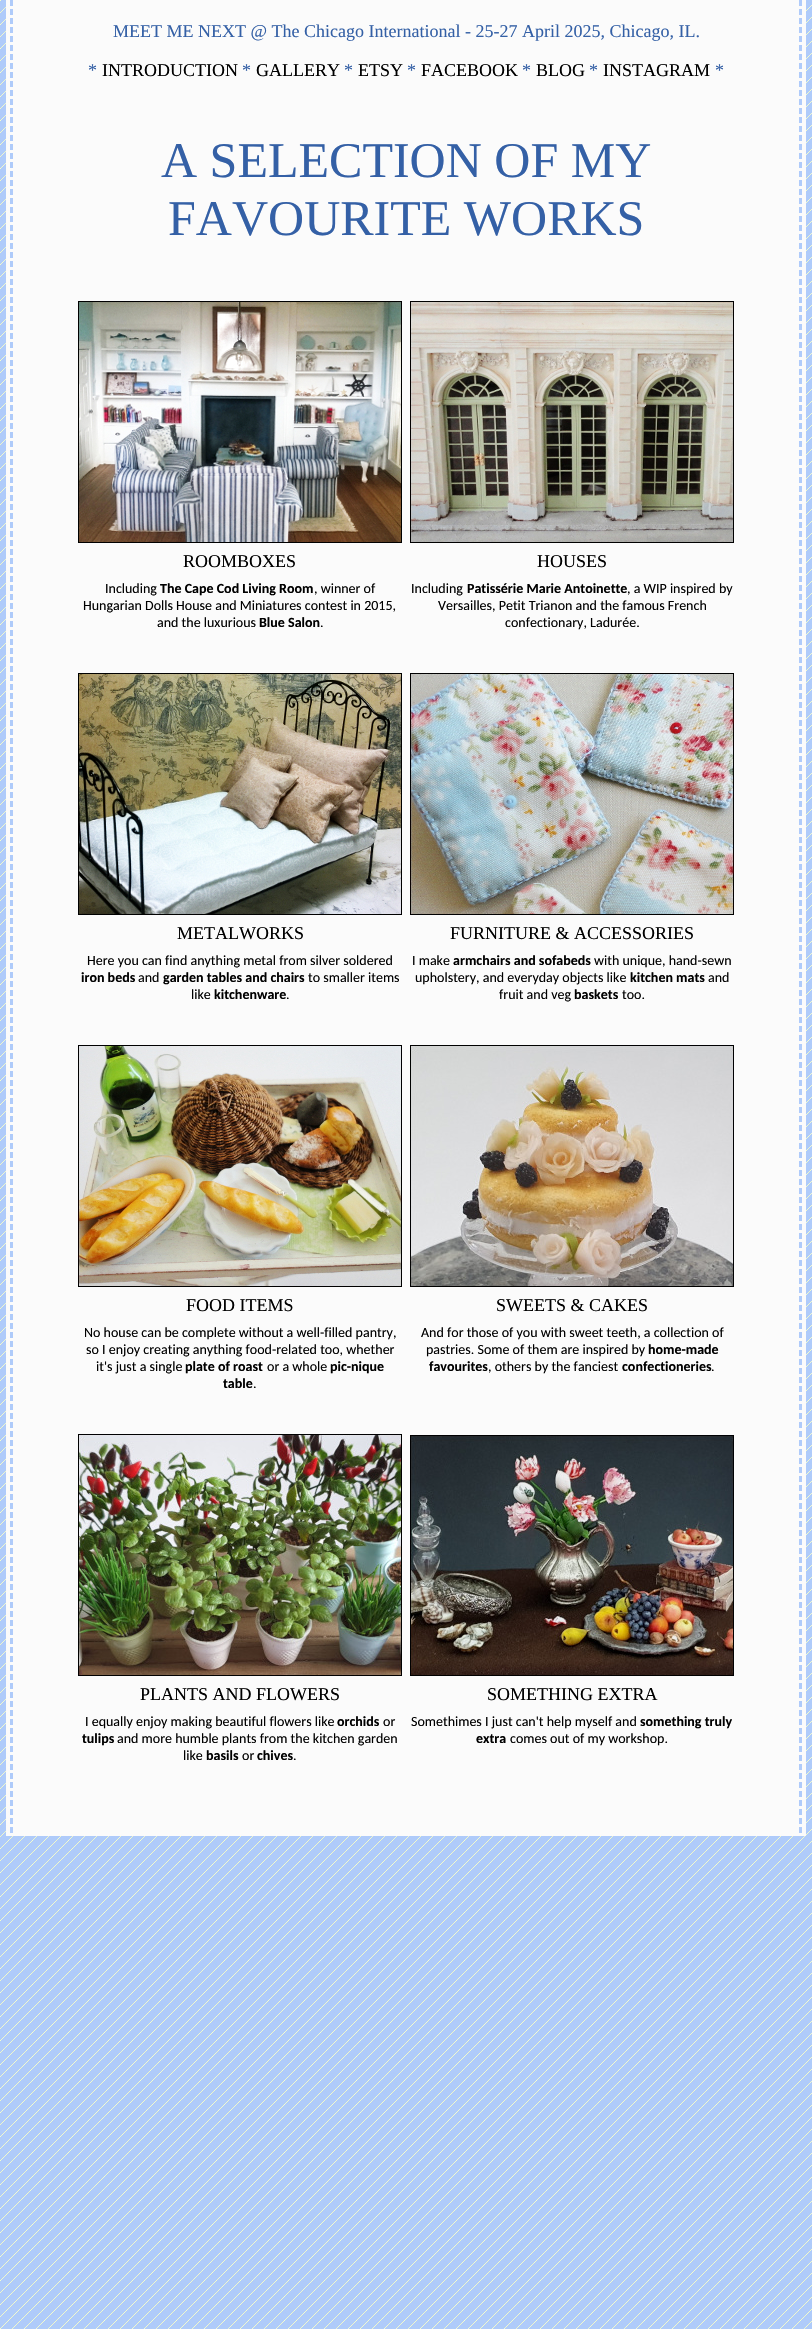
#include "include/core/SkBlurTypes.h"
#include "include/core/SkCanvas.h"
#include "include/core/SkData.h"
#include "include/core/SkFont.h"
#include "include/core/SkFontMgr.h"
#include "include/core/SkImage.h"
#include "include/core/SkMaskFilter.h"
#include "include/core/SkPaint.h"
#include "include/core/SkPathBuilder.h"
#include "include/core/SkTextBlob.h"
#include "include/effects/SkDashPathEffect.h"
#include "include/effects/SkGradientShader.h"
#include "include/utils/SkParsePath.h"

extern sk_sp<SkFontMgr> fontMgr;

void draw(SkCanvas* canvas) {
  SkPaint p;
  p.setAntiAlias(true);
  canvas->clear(SK_ColorWHITE);
  canvas->drawImageRect(SkImages::DeferredFromEncodedData(SkData::MakeFromFileName("images/1.png")), SkRect::MakeLTRB(0, 0, 812, 2329), SkSamplingOptions());
  canvas->drawImageRect(SkImages::DeferredFromEncodedData(SkData::MakeFromFileName("images/2.png")), SkRect::MakeLTRB(6, 0, 29, 1836), SkSamplingOptions());
  p.setColor(SkColorSetRGB(251, 251, 251));
  canvas->drawRect(SkRect::MakeLTRB(29, 0, 783, 1836), p);
  canvas->drawImageRect(SkImages::DeferredFromEncodedData(SkData::MakeFromFileName("images/3.png")), SkRect::MakeLTRB(78, 301, 402, 543), SkSamplingOptions());
  canvas->drawImageRect(SkImages::DeferredFromEncodedData(SkData::MakeFromFileName("images/4.png")), SkRect::MakeLTRB(410, 301, 734, 543), SkSamplingOptions());
  canvas->drawImageRect(SkImages::DeferredFromEncodedData(SkData::MakeFromFileName("images/5.png")), SkRect::MakeLTRB(78, 673, 402, 915), SkSamplingOptions());
  canvas->drawImageRect(SkImages::DeferredFromEncodedData(SkData::MakeFromFileName("images/6.png")), SkRect::MakeLTRB(410, 673, 734, 915), SkSamplingOptions());
  canvas->drawImageRect(SkImages::DeferredFromEncodedData(SkData::MakeFromFileName("images/7.png")), SkRect::MakeLTRB(78, 1045, 402, 1287), SkSamplingOptions());
  canvas->drawImageRect(SkImages::DeferredFromEncodedData(SkData::MakeFromFileName("images/8.png")), SkRect::MakeLTRB(410, 1045, 734, 1287), SkSamplingOptions());
  canvas->drawImageRect(SkImages::DeferredFromEncodedData(SkData::MakeFromFileName("images/9.png")), SkRect::MakeLTRB(78, 1434, 402, 1676), SkSamplingOptions());
  canvas->drawImageRect(SkImages::DeferredFromEncodedData(SkData::MakeFromFileName("images/10.png")), SkRect::MakeLTRB(410, 1435, 734, 1676), SkSamplingOptions());
  canvas->drawImageRect(SkImages::DeferredFromEncodedData(SkData::MakeFromFileName("images/11.png")), SkRect::MakeLTRB(783, 0, 806, 1836), SkSamplingOptions());
  SkFont font1(fontMgr->matchFamilyStyle("Liberation Serif", SkFontStyle::Normal()), 18);
  font1.setSubpixel(true);
  p.setColor(SkColorSetRGB(52, 96, 166));
  canvas->drawString("MEET ME NEXT @ The Chicago International - 25-27 April 2025, Chicago, IL.", 113, 37, font1, p);
  canvas->drawString("*", 88, 76, font1, p);
  p.setColor(SK_ColorBLACK);
  canvas->drawString("INTRODUCTION", 102, 76, font1, p);
  p.setColor(SkColorSetRGB(52, 96, 166));
  canvas->drawString("*", 242, 76, font1, p);
  p.setColor(SK_ColorBLACK);
  canvas->drawString("GALLERY", 256, 76, font1, p);
  p.setColor(SkColorSetRGB(52, 96, 166));
  canvas->drawString("*", 344, 76, font1, p);
  p.setColor(SK_ColorBLACK);
  canvas->drawString("ETSY", 358, 76, font1, p);
  p.setColor(SkColorSetRGB(52, 96, 166));
  canvas->drawString("*", 407, 76, font1, p);
  p.setColor(SK_ColorBLACK);
  canvas->drawString("FACEBOOK", 421, 76, font1, p);
  p.setColor(SkColorSetRGB(52, 96, 166));
  canvas->drawString("*", 522, 76, font1, p);
  p.setColor(SK_ColorBLACK);
  canvas->drawString("BLOG", 536, 76, font1, p);
  p.setColor(SkColorSetRGB(52, 96, 166));
  canvas->drawString("*", 589, 76, font1, p);
  p.setColor(SK_ColorBLACK);
  canvas->drawString("INSTAGRAM", 603, 76, font1, p);
  p.setColor(SkColorSetRGB(52, 96, 166));
  canvas->drawString("*", 715, 76, font1, p);
  SkFont font2(fontMgr->matchFamilyStyle("Liberation Serif", SkFontStyle::Normal()), 50);
  font2.setSubpixel(true);
  canvas->drawString("A SELECTION OF MY", 161, 177, font2, p);
  canvas->drawString("FAVOURITE WORKS", 168, 235, font2, p);
  p.setColor(SK_ColorBLACK);
  canvas->drawString("ROOMBOXES", 183, 567, font1, p);
  canvas->drawString("HOUSES", 537, 567, font1, p);
  SkFont font3(fontMgr->matchFamilyStyle("Carlito", SkFontStyle::Normal()), 14);
  font3.setSubpixel(true);
  canvas->drawString("Including", 105, 593, font3, p);
  SkFont font4(fontMgr->matchFamilyStyle("Carlito", SkFontStyle::Bold()), 14);
  font4.setSubpixel(true);
  canvas->drawString("The Cape Cod Living Room", 160, 593, font4, p);
  canvas->drawString(", winner of", 314, 593, font3, p);
  canvas->drawString("Hungarian Dolls House and Miniatures contest in 2015,", 83, 610, font3, p);
  canvas->drawString("and the luxurious", 157, 627, font3, p);
  canvas->drawString("Blue Salon", 259, 627, font4, p);
  canvas->drawString(".", 320, 627, font3, p);
  canvas->drawString("Including", 411, 593, font3, p);
  canvas->drawString("Patissérie Marie Antoinette", 467, 593, font4, p);
  canvas->drawString(", a WIP inspired by", 627, 593, font3, p);
  canvas->drawString("Versailles, Petit Trianon and the famous French", 438, 610, font3, p);
  canvas->drawString("confectionary, Ladurée.", 505, 627, font3, p);
  canvas->drawString("METALWORKS", 177, 939, font1, p);
  canvas->drawString("FURNITURE & ACCESSORIES", 450, 939, font1, p);
  canvas->drawString("Here you can find anything metal from silver soldered", 87, 965, font3, p);
  canvas->drawString("iron beds", 81, 982, font4, p);
  canvas->drawString("and", 138, 982, font3, p);
  canvas->drawString("garden tables and chairs", 163, 982, font4, p);
  canvas->drawString("to smaller items", 308, 982, font3, p);
  canvas->drawString("like", 191, 999, font3, p);
  canvas->drawString("kitchenware", 214, 999, font4, p);
  canvas->drawString(".", 286, 999, font3, p);
  canvas->drawString("I make", 412, 965, font3, p);
  canvas->drawString("armchairs and sofabeds", 453, 965, font4, p);
  canvas->drawString("with unique, hand-sewn", 594, 965, font3, p);
  canvas->drawString("upholstery, and everyday objects like", 415, 982, font3, p);
  canvas->drawString("kitchen mats", 630, 982, font4, p);
  canvas->drawString("and", 708, 982, font3, p);
  canvas->drawString("fruit and veg", 499, 999, font3, p);
  canvas->drawString("baskets", 574, 999, font4, p);
  canvas->drawString("too.", 622, 999, font3, p);
  canvas->drawString("FOOD ITEMS", 186, 1311, font1, p);
  canvas->drawString("SWEETS & CAKES", 496, 1311, font1, p);
  canvas->drawString("No house can be complete without a well-filled pantry,", 84, 1337, font3, p);
  canvas->drawString("so I enjoy creating anything food-related too, whether", 86, 1354, font3, p);
  canvas->drawString("it's just a single", 96, 1371, font3, p);
  canvas->drawString("plate of roast", 185, 1371, font4, p);
  canvas->drawString("or a whole", 267, 1371, font3, p);
  canvas->drawString("pic-nique", 330, 1371, font4, p);
  canvas->drawString("table", 223, 1388, font4, p);
  canvas->drawString(".", 253, 1388, font3, p);
  canvas->drawString("And for those of you with sweet teeth, a collection of", 421, 1337, font3, p);
  canvas->drawString("pastries. Some of them are inspired by", 426, 1354, font3, p);
  canvas->drawString("home-made", 648, 1354, font4, p);
  canvas->drawString("favourites", 429, 1371, font4, p);
  canvas->drawString(", others by the fanciest", 488, 1371, font3, p);
  canvas->drawString("confectioneries", 622, 1371, font4, p);
  canvas->drawString(".", 711, 1371, font3, p);
  canvas->drawString("PLANTS AND FLOWERS", 140, 1700, font1, p);
  canvas->drawString("SOMETHING EXTRA", 487, 1700, font1, p);
  canvas->drawString("I equally enjoy making beautiful flowers like", 85, 1726, font3, p);
  canvas->drawString("orchids", 337, 1726, font4, p);
  canvas->drawString("or", 383, 1726, font3, p);
  canvas->drawString("tulips", 82, 1743, font4, p);
  canvas->drawString("and more humble plants from the kitchen garden", 117, 1743, font3, p);
  canvas->drawString("like", 183, 1760, font3, p);
  canvas->drawString("basils", 206, 1760, font4, p);
  canvas->drawString("or", 242, 1760, font3, p);
  canvas->drawString("chives", 257, 1760, font4, p);
  canvas->drawString(".", 293, 1760, font3, p);
  canvas->drawString("Somethimes I just can't help myself and", 411, 1726, font3, p);
  canvas->drawString("something truly", 640, 1726, font4, p);
  canvas->drawString("extra", 476, 1743, font4, p);
  canvas->drawString("comes out of my workshop.", 510, 1743, font3, p);
}
